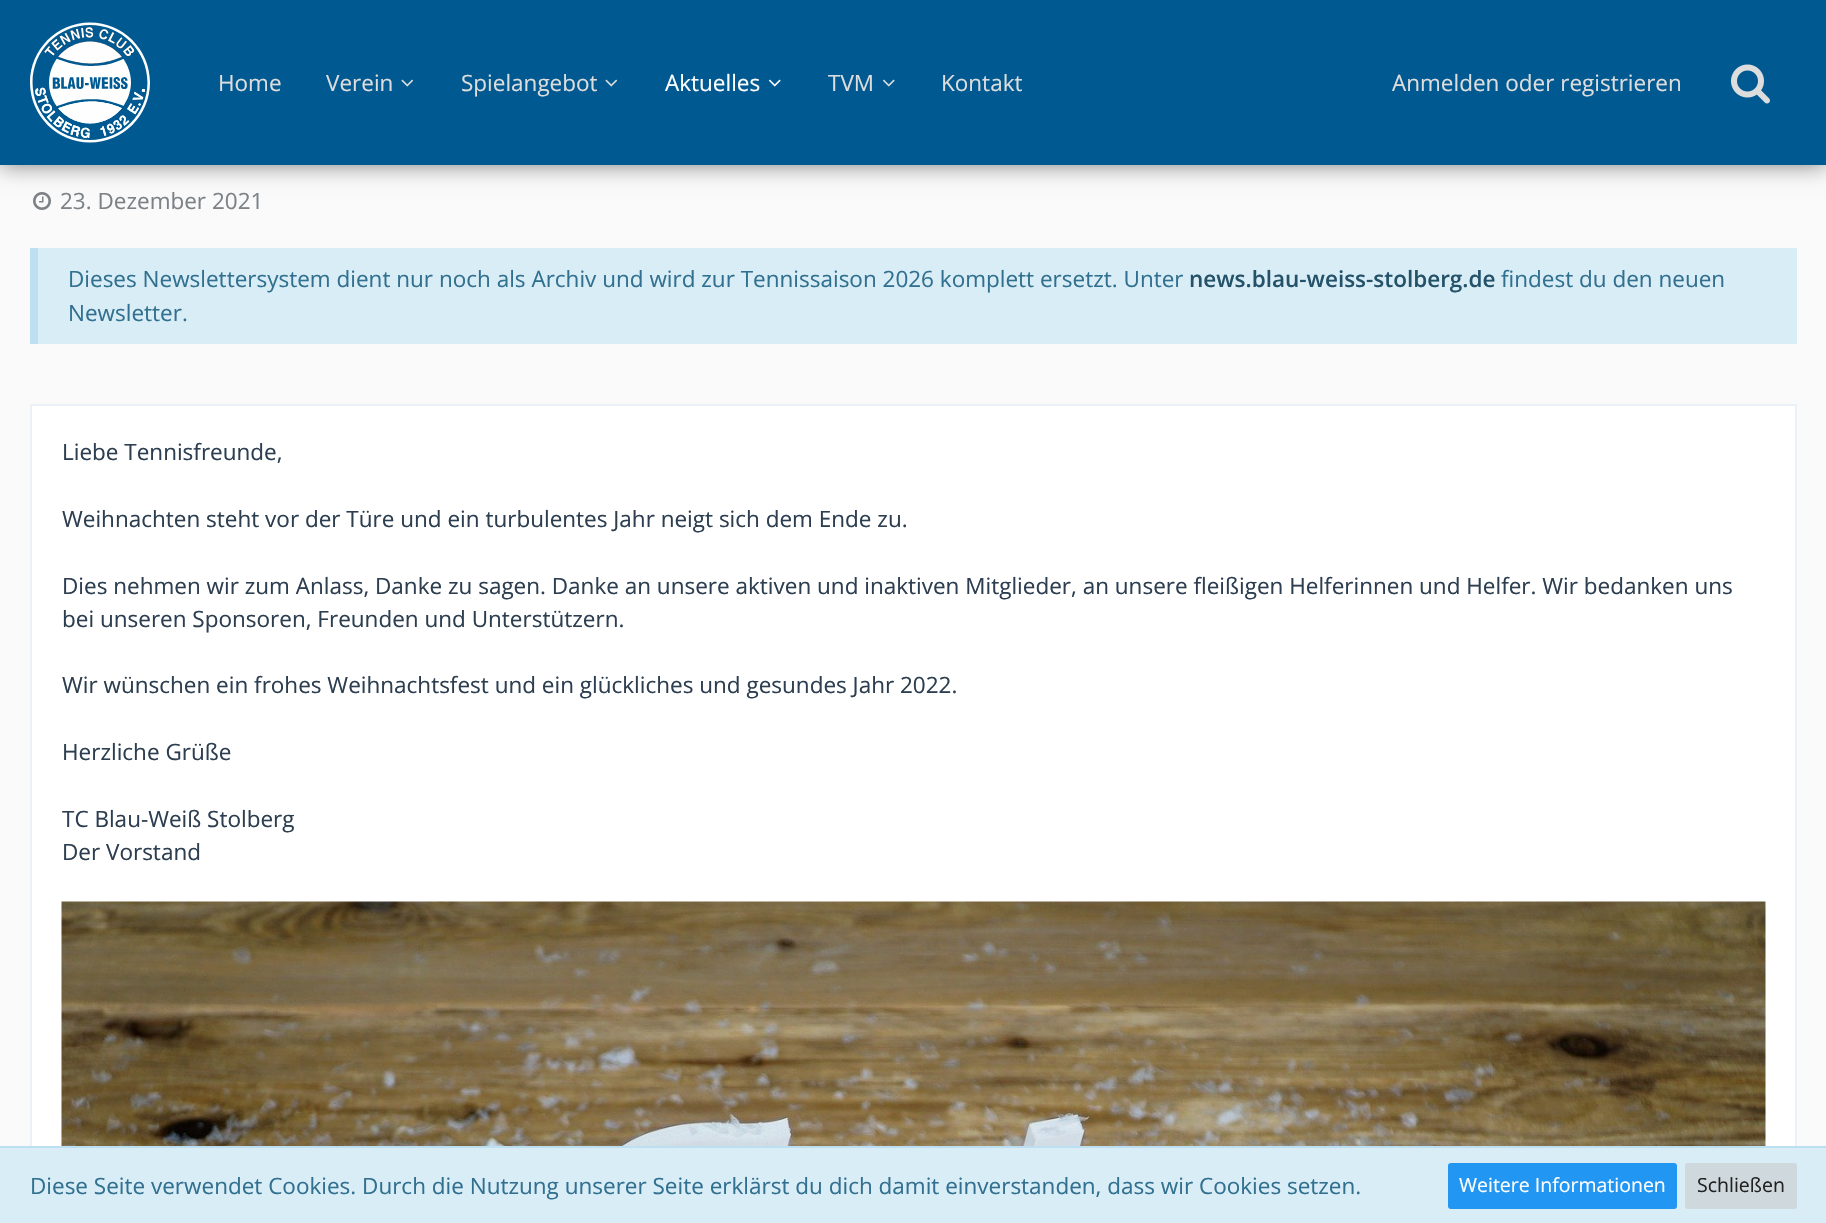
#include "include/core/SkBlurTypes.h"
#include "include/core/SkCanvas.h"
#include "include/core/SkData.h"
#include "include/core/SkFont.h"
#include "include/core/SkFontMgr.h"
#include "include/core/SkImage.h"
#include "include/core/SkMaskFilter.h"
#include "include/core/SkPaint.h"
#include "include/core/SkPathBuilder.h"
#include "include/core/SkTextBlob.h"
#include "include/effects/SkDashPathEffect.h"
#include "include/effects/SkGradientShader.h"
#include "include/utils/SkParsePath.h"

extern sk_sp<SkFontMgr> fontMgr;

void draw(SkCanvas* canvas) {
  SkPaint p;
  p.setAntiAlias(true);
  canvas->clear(SkColorSetRGB(250, 250, 250));
  canvas->drawImageRect(SkImages::DeferredFromEncodedData(SkData::MakeFromFileName("images/6.png")), SkRect::MakeLTRB(33, 192, 51, 210), SkSamplingOptions());
  p.setColor(SkColorSetARGB(128, 0, 0, 0));
  p.setMaskFilter(SkMaskFilter::MakeBlur(kNormal_SkBlurStyle, 11));
  canvas->drawRect(SkRect::MakeLTRB(0, 0, 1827, 165), p);
  p.setMaskFilter(nullptr);
  p.setColor(SkColorSetRGB(0, 90, 145));
  canvas->drawRect(SkRect::MakeLTRB(0, 0, 1826, 165), p);
  canvas->drawImageRect(SkImages::DeferredFromEncodedData(SkData::MakeFromFileName("images/1.png")), SkRect::MakeLTRB(30, 22, 150, 143), SkSamplingOptions());
  canvas->drawImageRect(SkImages::DeferredFromEncodedData(SkData::MakeFromFileName("images/2.png")), SkRect::MakeLTRB(401, 79, 414, 87), SkSamplingOptions());
  canvas->drawImageRect(SkImages::DeferredFromEncodedData(SkData::MakeFromFileName("images/2.png")), SkRect::MakeLTRB(605, 79, 618, 87), SkSamplingOptions());
  canvas->drawImageRect(SkImages::DeferredFromEncodedData(SkData::MakeFromFileName("images/3.png")), SkRect::MakeLTRB(768, 79, 781, 87), SkSamplingOptions());
  canvas->drawImageRect(SkImages::DeferredFromEncodedData(SkData::MakeFromFileName("images/4.png")), SkRect::MakeLTRB(882, 79, 895, 87), SkSamplingOptions());
  canvas->drawImageRect(SkImages::DeferredFromEncodedData(SkData::MakeFromFileName("images/5.png")), SkRect::MakeLTRB(1731, 64, 1770, 104), SkSamplingOptions());
  p.setColor(SkColorSetRGB(217, 237, 247));
  canvas->drawRect(SkRect::MakeLTRB(38, 248, 1797, 344), p);
  p.setColor(SkColorSetRGB(188, 223, 241));
  canvas->drawRect(SkRect::MakeLTRB(30, 248, 38, 344), p);
  p.setColor(SK_ColorWHITE);
  canvas->drawRect(SkRect::MakeLTRB(32, 406, 1795, 1146), p);
  p.setStyle(SkPaint::kStroke_Style);
  p.setStrokeWidth(2);
  p.setColor(SkColorSetRGB(236, 241, 247));
  canvas->drawRect(SkRect::MakeLTRB(31, 405, 1796, 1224), p);
  canvas->drawImageRect(SkImages::DeferredFromEncodedData(SkData::MakeFromFileName("images/7.png")), SkRect::MakeLTRB(61, 901, 1766, 1146), SkSamplingOptions());
  p.setStyle(SkPaint::kFill_Style);
  p.setColor(SkColorSetRGB(217, 237, 247));
  canvas->drawRect(SkRect::MakeLTRB(0, 1148, 1826, 1223), p);
  p.setColor(SkColorSetRGB(188, 223, 241));
  canvas->drawRect(SkRect::MakeLTRB(0, 1146, 1826, 1148), p);
  p.setColor(SkColorSetRGB(33, 150, 243));
  canvas->drawRoundRect(SkRect::MakeLTRB(1448, 1163, 1677, 1209), 3, 3, p);
  p.setColor(SkColorSetRGB(207, 216, 220));
  canvas->drawRoundRect(SkRect::MakeLTRB(1685, 1163, 1797, 1209), 3, 3, p);
  SkFont font1(fontMgr->matchFamilyStyle("Open Sans", SkFontStyle::Normal()), 22.5f);
  font1.setSubpixel(true);
  p.setColor(SkColorSetRGB(221, 221, 221));
  canvas->drawString("Home", 218, 91, font1, p);
  canvas->drawString("Verein", 326, 91, font1, p);
  canvas->drawString("Spielangebot", 461, 91, font1, p);
  p.setColor(SK_ColorWHITE);
  canvas->drawString("Aktuelles", 665, 91, font1, p);
  p.setColor(SkColorSetRGB(221, 221, 221));
  canvas->drawString("TVM", 828, 91, font1, p);
  canvas->drawString("Kontakt", 941, 91, font1, p);
  canvas->drawString("Anmelden oder registrieren", 1392, 91, font1, p);
  p.setColor(SkColorSetRGB(125, 130, 135));
  canvas->drawString("23. Dezember 2021", 60, 209, font1, p);
  p.setColor(SkColorSetRGB(49, 112, 143));
  canvas->drawString("Dieses Newslettersystem dient nur noch als Archiv und wird zur Tennissaison 2026 komplett ersetzt. Unter", 68, 287, font1, p);
  SkFont font2(fontMgr->matchFamilyStyle("Open Sans", SkFontStyle(600, SkFontStyle::kNormal_Width, SkFontStyle::kUpright_Slant)), 22.5f);
  font2.setSubpixel(true);
  p.setColor(SkColorSetRGB(36, 82, 105));
  canvas->drawString("news.blau-weiss-stolberg.de", 1189, 287, font2, p);
  p.setColor(SkColorSetRGB(49, 112, 143));
  canvas->drawString("findest du den neuen", 1501, 287, font1, p);
  canvas->drawString("Newsletter.", 68, 321, font1, p);
  p.setColor(SkColorSetRGB(44, 62, 80));
  canvas->drawString("Liebe Tennisfreunde,", 62, 460, font1, p);
  canvas->drawString("Weihnachten steht vor der Türe und ein turbulentes Jahr neigt sich dem Ende zu.", 62, 527, font1, p);
  canvas->drawString("Dies nehmen wir zum Anlass, Danke zu sagen. Danke an unsere aktiven und inaktiven Mitglieder, an unsere fleißigen Helferinnen und Helfer. Wir bedanken uns", 62, 594, font1, p);
  canvas->drawString("bei unseren Sponsoren, Freunden und Unterstützern.", 62, 627, font1, p);
  canvas->drawString("Wir wünschen ein frohes Weihnachtsfest und ein glückliches und gesundes Jahr 2022.", 62, 693, font1, p);
  canvas->drawString("Herzliche Grüße", 62, 760, font1, p);
  canvas->drawString("TC Blau-Weiß Stolberg", 62, 827, font1, p);
  canvas->drawString("Der Vorstand", 62, 860, font1, p);
  p.setColor(SkColorSetRGB(49, 112, 143));
  canvas->drawString("Diese Seite verwendet Cookies. Durch die Nutzung unserer Seite erklärst du dich damit einverstanden, dass wir Cookies setzen.", 30, 1194, font1, p);
  SkFont font3(fontMgr->matchFamilyStyle("Open Sans", SkFontStyle::Normal()), 19.5f);
  font3.setSubpixel(true);
  p.setColor(SK_ColorWHITE);
  canvas->drawString("Weitere Informationen", 1459, 1192, font3, p);
  p.setColor(SkColorSetRGB(33, 33, 33));
  canvas->drawString("Schließen", 1697, 1192, font3, p);
}
